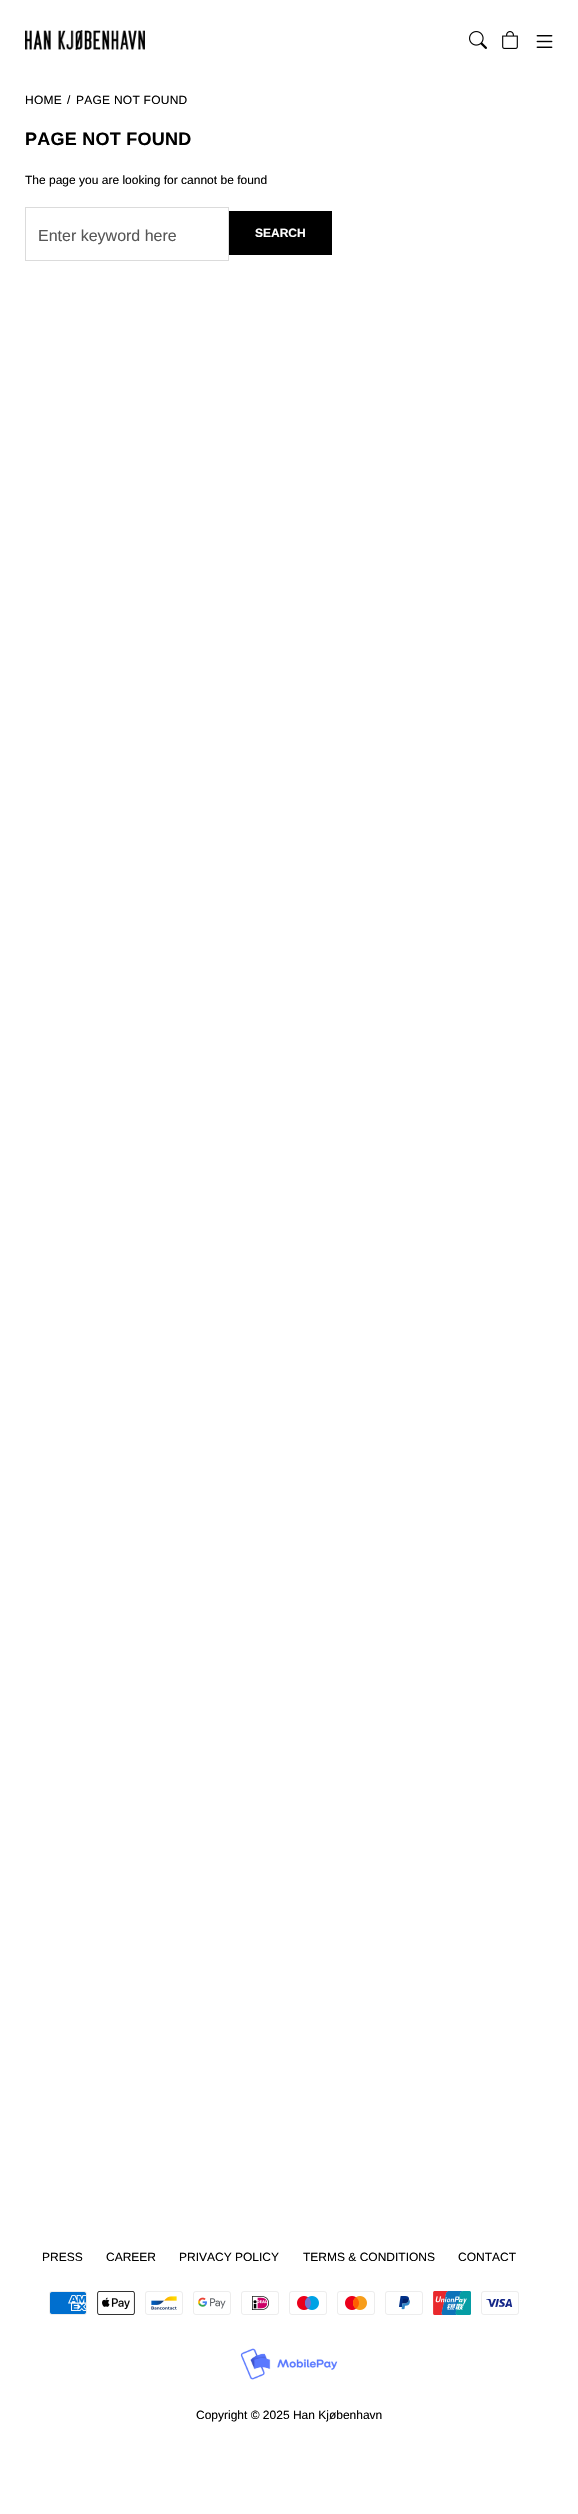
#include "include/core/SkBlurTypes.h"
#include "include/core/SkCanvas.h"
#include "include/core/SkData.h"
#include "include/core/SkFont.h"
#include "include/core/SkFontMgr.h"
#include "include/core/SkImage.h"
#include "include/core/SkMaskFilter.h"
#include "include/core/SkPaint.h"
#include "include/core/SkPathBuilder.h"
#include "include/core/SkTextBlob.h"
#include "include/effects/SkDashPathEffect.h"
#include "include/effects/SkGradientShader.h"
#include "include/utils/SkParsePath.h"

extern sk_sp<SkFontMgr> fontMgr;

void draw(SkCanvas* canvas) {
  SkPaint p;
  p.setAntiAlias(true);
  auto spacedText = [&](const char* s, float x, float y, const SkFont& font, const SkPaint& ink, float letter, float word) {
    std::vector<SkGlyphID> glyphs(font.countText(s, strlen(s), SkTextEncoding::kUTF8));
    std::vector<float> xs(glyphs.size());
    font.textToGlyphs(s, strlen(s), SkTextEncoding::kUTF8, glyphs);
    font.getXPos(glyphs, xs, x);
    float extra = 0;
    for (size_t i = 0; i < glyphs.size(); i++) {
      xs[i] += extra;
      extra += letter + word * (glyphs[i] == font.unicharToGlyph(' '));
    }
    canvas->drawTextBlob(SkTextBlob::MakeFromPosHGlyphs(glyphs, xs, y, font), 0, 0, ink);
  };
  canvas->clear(SK_ColorWHITE);
  canvas->drawImageRect(SkImages::DeferredFromEncodedData(SkData::MakeFromFileName("images/1.png")), SkRect::MakeLTRB(25, 30, 145, 50), SkSamplingOptions());
  canvas->drawImageRect(SkImages::DeferredFromEncodedData(SkData::MakeFromFileName("images/2.png")), SkRect::MakeLTRB(469, 31, 487, 49), SkSamplingOptions());
  canvas->drawImageRect(SkImages::DeferredFromEncodedData(SkData::MakeFromFileName("images/3.png")), SkRect::MakeLTRB(502, 31, 518, 49), SkSamplingOptions());
  canvas->drawImageRect(SkImages::DeferredFromEncodedData(SkData::MakeFromFileName("images/4.png")), SkRect::MakeLTRB(536, 35, 553, 48), SkSamplingOptions());
  p.setStyle(SkPaint::kStroke_Style);
  p.setStrokeWidth(1);
  p.setColor(SkColorSetRGB(219, 219, 219));
  canvas->drawRect(SkRect::MakeLTRB(25.5f, 207.5f, 228.5f, 260.5f), p);
  p.setStyle(SkPaint::kFill_Style);
  p.setColor(SK_ColorBLACK);
  canvas->drawRect(SkRect::MakeLTRB(229, 211, 332, 255), p);
  canvas->drawImageRect(SkImages::DeferredFromEncodedData(SkData::MakeFromFileName("images/5.png")), SkRect::MakeLTRB(49, 2291, 87, 2315), SkSamplingOptions());
  canvas->drawImageRect(SkImages::DeferredFromEncodedData(SkData::MakeFromFileName("images/6.png")), SkRect::MakeLTRB(97, 2291, 135, 2315), SkSamplingOptions());
  canvas->drawImageRect(SkImages::DeferredFromEncodedData(SkData::MakeFromFileName("images/7.png")), SkRect::MakeLTRB(145, 2291, 183, 2315), SkSamplingOptions());
  canvas->drawImageRect(SkImages::DeferredFromEncodedData(SkData::MakeFromFileName("images/8.png")), SkRect::MakeLTRB(193, 2291, 231, 2315), SkSamplingOptions());
  canvas->drawImageRect(SkImages::DeferredFromEncodedData(SkData::MakeFromFileName("images/9.png")), SkRect::MakeLTRB(241, 2291, 279, 2315), SkSamplingOptions());
  canvas->drawImageRect(SkImages::DeferredFromEncodedData(SkData::MakeFromFileName("images/10.png")), SkRect::MakeLTRB(289, 2291, 327, 2315), SkSamplingOptions());
  canvas->drawImageRect(SkImages::DeferredFromEncodedData(SkData::MakeFromFileName("images/11.png")), SkRect::MakeLTRB(337, 2291, 375, 2315), SkSamplingOptions());
  canvas->drawImageRect(SkImages::DeferredFromEncodedData(SkData::MakeFromFileName("images/12.png")), SkRect::MakeLTRB(385, 2291, 423, 2315), SkSamplingOptions());
  canvas->drawImageRect(SkImages::DeferredFromEncodedData(SkData::MakeFromFileName("images/13.png")), SkRect::MakeLTRB(433, 2291, 471, 2315), SkSamplingOptions());
  canvas->drawImageRect(SkImages::DeferredFromEncodedData(SkData::MakeFromFileName("images/14.png")), SkRect::MakeLTRB(481, 2291, 519, 2315), SkSamplingOptions());
  canvas->drawImageRect(SkImages::DeferredFromEncodedData(SkData::MakeFromFileName("images/15.png")), SkRect::MakeLTRB(240, 2348, 338, 2380), SkSamplingOptions());
  SkFont font1(fontMgr->matchFamilyStyle("Liberation Sans", SkFontStyle::Normal()), 12);
  font1.setSubpixel(true);
  spacedText("HOME", 25, 104, font1, p, 0.25f, 0);
  spacedText("/", 67, 104, font1, p, 0.25f, 0);
  spacedText("PAGE NOT FOUND", 76, 104, font1, p, 0.25f, 0);
  SkFont font2(fontMgr->matchFamilyStyle("Liberation Sans", SkFontStyle::Bold()), 18);
  font2.setSubpixel(true);
  spacedText("PAGE NOT FOUND", 25, 145, font2, p, 0.25f, 0);
  canvas->drawString("The page you are looking for cannot be found", 25, 184, font1, p);
  SkFont font3(fontMgr->matchFamilyStyle("Liberation Sans", SkFontStyle::Normal()), 16);
  font3.setSubpixel(true);
  p.setColor(SkColorSetRGB(87, 87, 87));
  canvas->drawString("Enter keyword here", 38, 241, font3, p);
  SkFont font4(fontMgr->matchFamilyStyle("Liberation Sans", SkFontStyle::Bold()), 12);
  font4.setSubpixel(true);
  p.setColor(SK_ColorWHITE);
  canvas->drawString("SEARCH", 255, 237, font4, p);
  p.setColor(SK_ColorBLACK);
  canvas->drawString("PRESS", 42, 2261, font1, p);
  canvas->drawString("CAREER", 106, 2261, font1, p);
  canvas->drawString("PRIVACY POLICY", 179, 2261, font1, p);
  canvas->drawString("TERMS & CONDITIONS", 303, 2261, font1, p);
  canvas->drawString("CONTACT", 458, 2261, font1, p);
  canvas->drawString("Copyright © 2025 Han Kjøbenhavn", 196, 2419, font1, p);
}
